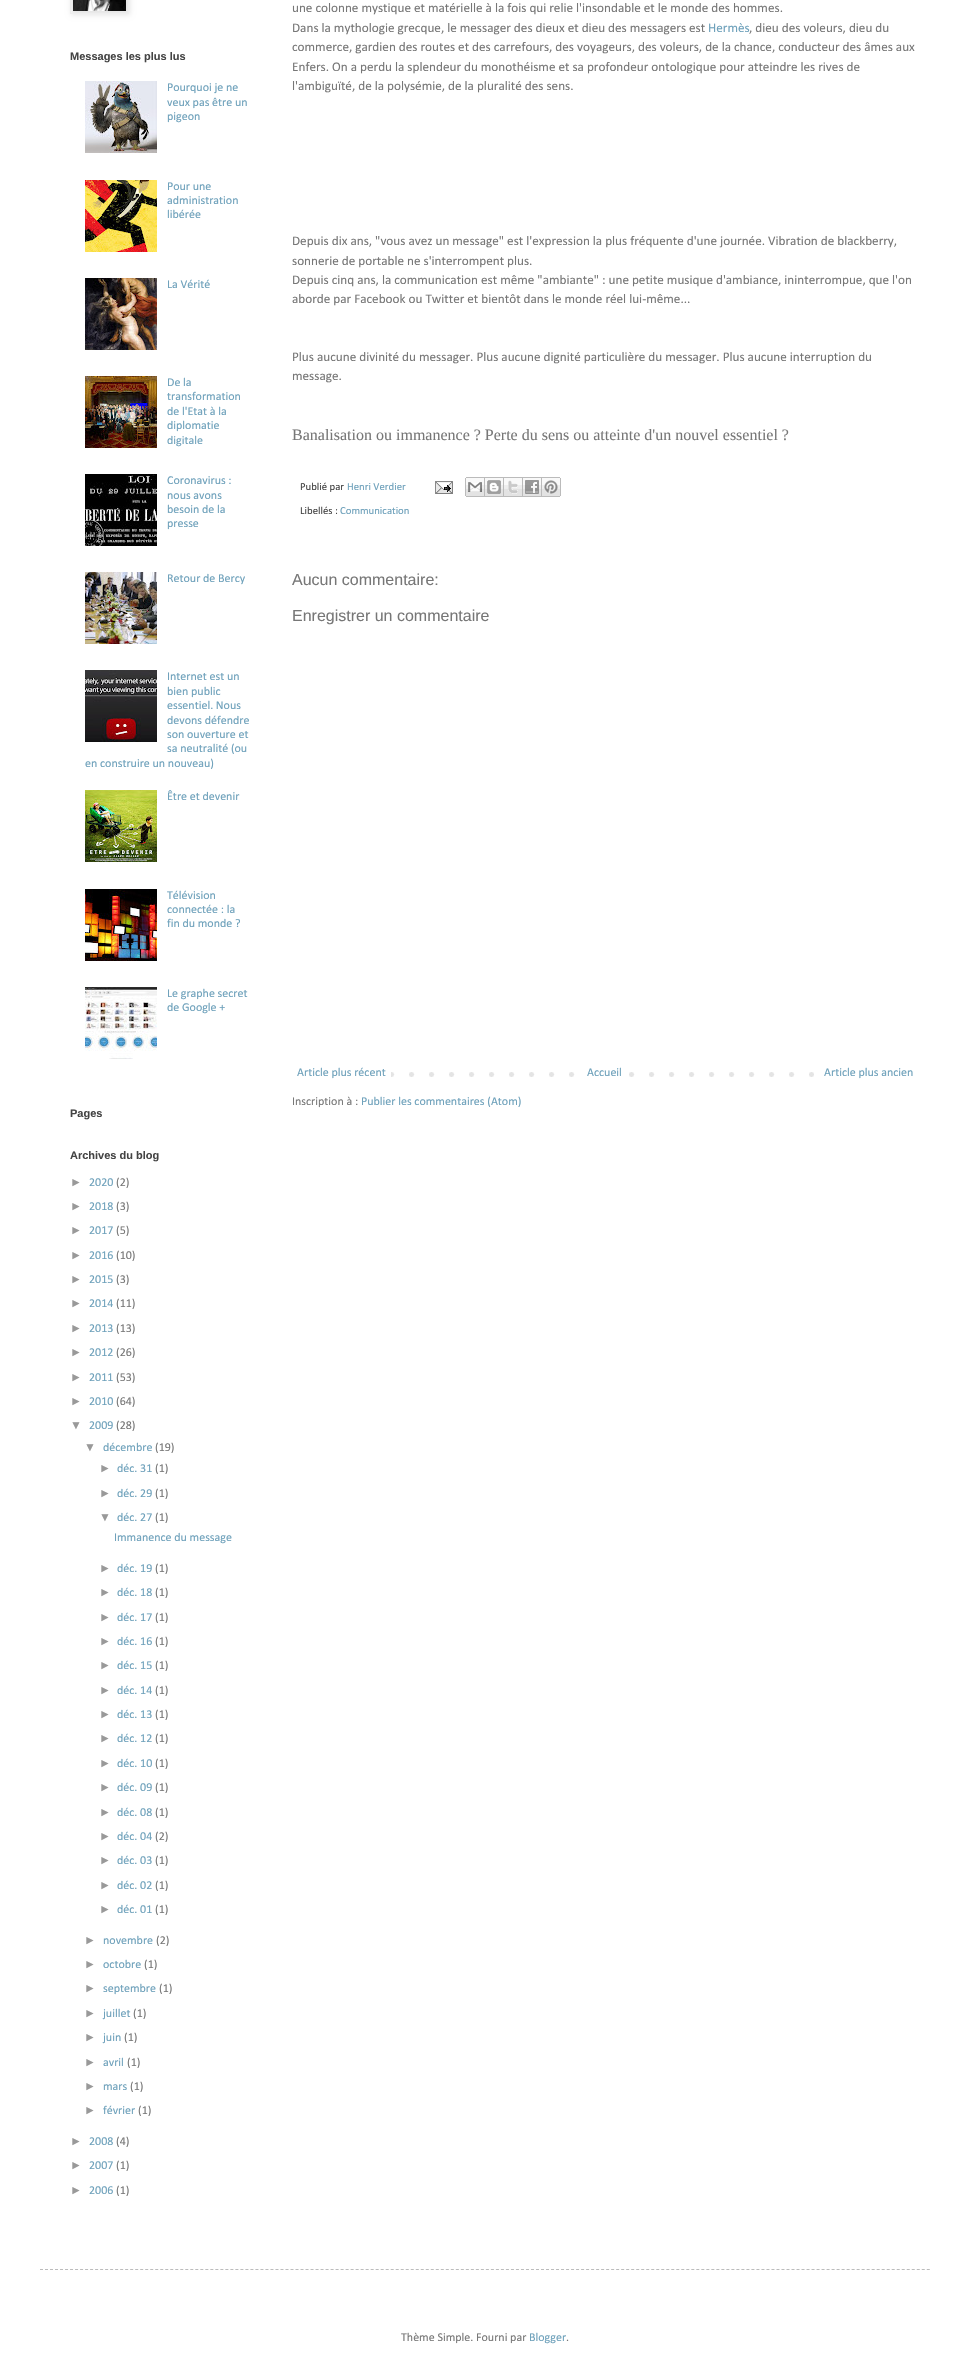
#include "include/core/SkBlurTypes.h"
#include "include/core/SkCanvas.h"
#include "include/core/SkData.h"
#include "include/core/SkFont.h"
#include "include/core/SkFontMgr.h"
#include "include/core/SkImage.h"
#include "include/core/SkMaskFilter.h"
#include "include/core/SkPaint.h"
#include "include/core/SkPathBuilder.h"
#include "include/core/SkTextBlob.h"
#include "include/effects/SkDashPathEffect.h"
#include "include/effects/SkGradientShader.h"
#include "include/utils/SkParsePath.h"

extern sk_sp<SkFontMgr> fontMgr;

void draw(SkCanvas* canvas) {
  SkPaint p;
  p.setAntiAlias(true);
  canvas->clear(SK_ColorWHITE);
  p.setColor(SkColorSetARGB(26, 0, 0, 0));
  p.setMaskFilter(SkMaskFilter::MakeBlur(kNormal_SkBlurStyle, 2.5f));
  canvas->drawRect(SkRect::MakeLTRB(71, -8, 130, 15), p);
  p.setMaskFilter(nullptr);
  p.setStyle(SkPaint::kStroke_Style);
  p.setStrokeWidth(1);
  p.setColor(SkColorSetRGB(238, 238, 238));
  canvas->drawRect(SkRect::MakeLTRB(70.5f, -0.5f, 128.5f, 13.5f), p);
  canvas->drawImageRect(SkImages::DeferredFromEncodedData(SkData::MakeFromFileName("images/1.png")), SkRect::MakeLTRB(73, 0, 126, 11), SkSamplingOptions());
  canvas->drawImageRect(SkImages::DeferredFromEncodedData(SkData::MakeFromFileName("images/2.png")), SkRect::MakeLTRB(85, 81, 157, 153), SkSamplingOptions());
  canvas->drawImageRect(SkImages::DeferredFromEncodedData(SkData::MakeFromFileName("images/3.png")), SkRect::MakeLTRB(85, 180, 157, 252), SkSamplingOptions());
  canvas->drawImageRect(SkImages::DeferredFromEncodedData(SkData::MakeFromFileName("images/4.png")), SkRect::MakeLTRB(85, 278, 157, 350), SkSamplingOptions());
  canvas->drawImageRect(SkImages::DeferredFromEncodedData(SkData::MakeFromFileName("images/5.png")), SkRect::MakeLTRB(85, 376, 157, 448), SkSamplingOptions());
  canvas->drawImageRect(SkImages::DeferredFromEncodedData(SkData::MakeFromFileName("images/6.png")), SkRect::MakeLTRB(85, 474, 157, 546), SkSamplingOptions());
  canvas->drawImageRect(SkImages::DeferredFromEncodedData(SkData::MakeFromFileName("images/7.png")), SkRect::MakeLTRB(85, 572, 157, 644), SkSamplingOptions());
  canvas->drawImageRect(SkImages::DeferredFromEncodedData(SkData::MakeFromFileName("images/8.png")), SkRect::MakeLTRB(85, 670, 157, 742), SkSamplingOptions());
  canvas->drawImageRect(SkImages::DeferredFromEncodedData(SkData::MakeFromFileName("images/9.png")), SkRect::MakeLTRB(85, 790, 157, 862), SkSamplingOptions());
  canvas->drawImageRect(SkImages::DeferredFromEncodedData(SkData::MakeFromFileName("images/10.png")), SkRect::MakeLTRB(85, 889, 157, 961), SkSamplingOptions());
  canvas->drawImageRect(SkImages::DeferredFromEncodedData(SkData::MakeFromFileName("images/11.png")), SkRect::MakeLTRB(85, 987, 157, 1059), SkSamplingOptions());
  canvas->drawImageRect(SkImages::DeferredFromEncodedData(SkData::MakeFromFileName("images/12.png")), SkRect::MakeLTRB(435, 481, 453, 494), SkSamplingOptions());
  canvas->drawImageRect(SkImages::DeferredFromEncodedData(SkData::MakeFromFileName("images/13.png")), SkRect::MakeLTRB(465, 477, 485, 497), SkSamplingOptions());
  canvas->drawImageRect(SkImages::DeferredFromEncodedData(SkData::MakeFromFileName("images/14.png")), SkRect::MakeLTRB(485, 477, 504, 497), SkSamplingOptions());
  canvas->drawImageRect(SkImages::DeferredFromEncodedData(SkData::MakeFromFileName("images/15.png")), SkRect::MakeLTRB(504, 477, 523, 497), SkSamplingOptions());
  canvas->drawImageRect(SkImages::DeferredFromEncodedData(SkData::MakeFromFileName("images/16.png")), SkRect::MakeLTRB(523, 477, 542, 497), SkSamplingOptions());
  canvas->drawImageRect(SkImages::DeferredFromEncodedData(SkData::MakeFromFileName("images/17.png")), SkRect::MakeLTRB(542, 477, 561, 497), SkSamplingOptions());
  canvas->drawImageRect(SkImages::DeferredFromEncodedData(SkData::MakeFromFileName("images/18.png")), SkRect::MakeLTRB(391, 1072, 814, 1077), SkSamplingOptions());
  p.setStyle(SkPaint::kFill_Style);
  p.setColor(SK_ColorWHITE);
  canvas->drawRect(SkRect::MakeLTRB(589, 1072, 615, 1077), p);
  p.setStyle(SkPaint::kStroke_Style);
  p.setColor(SkColorSetRGB(187, 187, 187));
  p.setPathEffect(SkDashPathEffect::Make({{3, 2.01f}}, 0));
  canvas->drawPath(SkPathBuilder().moveTo(40, 2269.5f).lineTo(930, 2269.5f).detach(), p);
  p.setPathEffect(nullptr);
  SkFont font1(fontMgr->matchFamilyStyle("Liberation Sans", SkFontStyle::Bold()), 11);
  font1.setSubpixel(true);
  p.setStyle(SkPaint::kFill_Style);
  p.setColor(SkColorSetRGB(68, 68, 68));
  canvas->drawString("Messages les plus lus", 70, 60, font1, p);
  SkFont font2(fontMgr->matchFamilyStyle("Calibri", SkFontStyle::Normal()), 12);
  font2.setSubpixel(true);
  p.setColor(SkColorSetRGB(110, 161, 187));
  canvas->drawString("Pourquoi je ne", 167, 91, font2, p);
  canvas->drawString("veux pas être un", 167, 106, font2, p);
  canvas->drawString("pigeon", 167, 120, font2, p);
  canvas->drawString("Pour une", 167, 190, font2, p);
  canvas->drawString("administration", 167, 204, font2, p);
  canvas->drawString("libérée", 167, 218, font2, p);
  canvas->drawString("La Vérité", 167, 288, font2, p);
  canvas->drawString("De la", 167, 386, font2, p);
  canvas->drawString("transformation", 167, 400, font2, p);
  canvas->drawString("de l'Etat à la", 167, 415, font2, p);
  canvas->drawString("diplomatie", 167, 429, font2, p);
  canvas->drawString("digitale", 167, 444, font2, p);
  canvas->drawString("Coronavirus :", 167, 484, font2, p);
  canvas->drawString("nous avons", 167, 499, font2, p);
  canvas->drawString("besoin de la", 167, 513, font2, p);
  canvas->drawString("presse", 167, 527, font2, p);
  canvas->drawString("Retour de Bercy", 167, 582, font2, p);
  canvas->drawString("Internet est un", 167, 680, font2, p);
  canvas->drawString("bien public", 167, 695, font2, p);
  canvas->drawString("essentiel. Nous", 167, 709, font2, p);
  canvas->drawString("devons défendre", 167, 724, font2, p);
  canvas->drawString("son ouverture et", 167, 738, font2, p);
  canvas->drawString("sa neutralité (ou", 167, 752, font2, p);
  canvas->drawString("en construire un nouveau)", 85, 767, font2, p);
  canvas->drawString("Être et devenir", 167, 800, font2, p);
  canvas->drawString("Télévision", 167, 899, font2, p);
  canvas->drawString("connectée : la", 167, 913, font2, p);
  canvas->drawString("fin du monde ?", 167, 927, font2, p);
  canvas->drawString("Le graphe secret", 167, 997, font2, p);
  canvas->drawString("de Google +", 167, 1011, font2, p);
  p.setColor(SkColorSetRGB(68, 68, 68));
  canvas->drawString("Pages", 70, 1117, font1, p);
  canvas->drawString("Archives du blog", 70, 1159, font1, p);
  SkFont font3(fontMgr->matchFamilyStyle("Liberation Sans", SkFontStyle::Normal()), 12);
  font3.setSubpixel(true);
  p.setColor(SkColorSetRGB(153, 153, 153));
  canvas->drawString("►", 70, 1186, font3, p);
  p.setColor(SkColorSetRGB(110, 161, 187));
  canvas->drawString("2020", 89, 1186, font2, p);
  p.setColor(SkColorSetRGB(119, 119, 119));
  canvas->drawString("(2)", 116, 1186, font2, p);
  p.setColor(SkColorSetRGB(153, 153, 153));
  canvas->drawString("►", 70, 1210, font3, p);
  p.setColor(SkColorSetRGB(110, 161, 187));
  canvas->drawString("2018", 89, 1210, font2, p);
  p.setColor(SkColorSetRGB(119, 119, 119));
  canvas->drawString("(3)", 116, 1210, font2, p);
  p.setColor(SkColorSetRGB(153, 153, 153));
  canvas->drawString("►", 70, 1234, font3, p);
  p.setColor(SkColorSetRGB(110, 161, 187));
  canvas->drawString("2017", 89, 1234, font2, p);
  p.setColor(SkColorSetRGB(119, 119, 119));
  canvas->drawString("(5)", 116, 1234, font2, p);
  p.setColor(SkColorSetRGB(153, 153, 153));
  canvas->drawString("►", 70, 1259, font3, p);
  p.setColor(SkColorSetRGB(110, 161, 187));
  canvas->drawString("2016", 89, 1259, font2, p);
  p.setColor(SkColorSetRGB(119, 119, 119));
  canvas->drawString("(10)", 116, 1259, font2, p);
  p.setColor(SkColorSetRGB(153, 153, 153));
  canvas->drawString("►", 70, 1283, font3, p);
  p.setColor(SkColorSetRGB(110, 161, 187));
  canvas->drawString("2015", 89, 1283, font2, p);
  p.setColor(SkColorSetRGB(119, 119, 119));
  canvas->drawString("(3)", 116, 1283, font2, p);
  p.setColor(SkColorSetRGB(153, 153, 153));
  canvas->drawString("►", 70, 1307, font3, p);
  p.setColor(SkColorSetRGB(110, 161, 187));
  canvas->drawString("2014", 89, 1307, font2, p);
  p.setColor(SkColorSetRGB(119, 119, 119));
  canvas->drawString("(11)", 116, 1307, font2, p);
  p.setColor(SkColorSetRGB(153, 153, 153));
  canvas->drawString("►", 70, 1332, font3, p);
  p.setColor(SkColorSetRGB(110, 161, 187));
  canvas->drawString("2013", 89, 1332, font2, p);
  p.setColor(SkColorSetRGB(119, 119, 119));
  canvas->drawString("(13)", 116, 1332, font2, p);
  p.setColor(SkColorSetRGB(153, 153, 153));
  canvas->drawString("►", 70, 1356, font3, p);
  p.setColor(SkColorSetRGB(110, 161, 187));
  canvas->drawString("2012", 89, 1356, font2, p);
  p.setColor(SkColorSetRGB(119, 119, 119));
  canvas->drawString("(26)", 116, 1356, font2, p);
  p.setColor(SkColorSetRGB(153, 153, 153));
  canvas->drawString("►", 70, 1381, font3, p);
  p.setColor(SkColorSetRGB(110, 161, 187));
  canvas->drawString("2011", 89, 1381, font2, p);
  p.setColor(SkColorSetRGB(119, 119, 119));
  canvas->drawString("(53)", 116, 1381, font2, p);
  p.setColor(SkColorSetRGB(153, 153, 153));
  canvas->drawString("►", 70, 1405, font3, p);
  p.setColor(SkColorSetRGB(110, 161, 187));
  canvas->drawString("2010", 89, 1405, font2, p);
  p.setColor(SkColorSetRGB(119, 119, 119));
  canvas->drawString("(64)", 116, 1405, font2, p);
  p.setColor(SkColorSetRGB(153, 153, 153));
  canvas->drawString("▼", 70, 1429, font3, p);
  p.setColor(SkColorSetRGB(110, 161, 187));
  canvas->drawString("2009", 89, 1429, font2, p);
  p.setColor(SkColorSetRGB(119, 119, 119));
  canvas->drawString("(28)", 116, 1429, font2, p);
  p.setColor(SkColorSetRGB(153, 153, 153));
  canvas->drawString("▼", 84, 1451, font3, p);
  p.setColor(SkColorSetRGB(110, 161, 187));
  canvas->drawString("décembre", 103, 1451, font2, p);
  p.setColor(SkColorSetRGB(119, 119, 119));
  canvas->drawString("(19)", 155, 1451, font2, p);
  p.setColor(SkColorSetRGB(153, 153, 153));
  canvas->drawString("►", 99, 1472, font3, p);
  p.setColor(SkColorSetRGB(110, 161, 187));
  canvas->drawString("déc. 31", 117, 1472, font2, p);
  p.setColor(SkColorSetRGB(119, 119, 119));
  canvas->drawString("(1)", 155, 1472, font2, p);
  p.setColor(SkColorSetRGB(153, 153, 153));
  canvas->drawString("►", 99, 1497, font3, p);
  p.setColor(SkColorSetRGB(110, 161, 187));
  canvas->drawString("déc. 29", 117, 1497, font2, p);
  p.setColor(SkColorSetRGB(119, 119, 119));
  canvas->drawString("(1)", 155, 1497, font2, p);
  p.setColor(SkColorSetRGB(153, 153, 153));
  canvas->drawString("▼", 99, 1521, font3, p);
  p.setColor(SkColorSetRGB(110, 161, 187));
  canvas->drawString("déc. 27", 117, 1521, font2, p);
  p.setColor(SkColorSetRGB(119, 119, 119));
  canvas->drawString("(1)", 155, 1521, font2, p);
  p.setColor(SkColorSetRGB(110, 161, 187));
  canvas->drawString("Immanence du message", 114, 1541, font2, p);
  p.setColor(SkColorSetRGB(153, 153, 153));
  canvas->drawString("►", 99, 1572, font3, p);
  p.setColor(SkColorSetRGB(110, 161, 187));
  canvas->drawString("déc. 19", 117, 1572, font2, p);
  p.setColor(SkColorSetRGB(119, 119, 119));
  canvas->drawString("(1)", 155, 1572, font2, p);
  p.setColor(SkColorSetRGB(153, 153, 153));
  canvas->drawString("►", 99, 1596, font3, p);
  p.setColor(SkColorSetRGB(110, 161, 187));
  canvas->drawString("déc. 18", 117, 1596, font2, p);
  p.setColor(SkColorSetRGB(119, 119, 119));
  canvas->drawString("(1)", 155, 1596, font2, p);
  p.setColor(SkColorSetRGB(153, 153, 153));
  canvas->drawString("►", 99, 1621, font3, p);
  p.setColor(SkColorSetRGB(110, 161, 187));
  canvas->drawString("déc. 17", 117, 1621, font2, p);
  p.setColor(SkColorSetRGB(119, 119, 119));
  canvas->drawString("(1)", 155, 1621, font2, p);
  p.setColor(SkColorSetRGB(153, 153, 153));
  canvas->drawString("►", 99, 1645, font3, p);
  p.setColor(SkColorSetRGB(110, 161, 187));
  canvas->drawString("déc. 16", 117, 1645, font2, p);
  p.setColor(SkColorSetRGB(119, 119, 119));
  canvas->drawString("(1)", 155, 1645, font2, p);
  p.setColor(SkColorSetRGB(153, 153, 153));
  canvas->drawString("►", 99, 1669, font3, p);
  p.setColor(SkColorSetRGB(110, 161, 187));
  canvas->drawString("déc. 15", 117, 1669, font2, p);
  p.setColor(SkColorSetRGB(119, 119, 119));
  canvas->drawString("(1)", 155, 1669, font2, p);
  p.setColor(SkColorSetRGB(153, 153, 153));
  canvas->drawString("►", 99, 1694, font3, p);
  p.setColor(SkColorSetRGB(110, 161, 187));
  canvas->drawString("déc. 14", 117, 1694, font2, p);
  p.setColor(SkColorSetRGB(119, 119, 119));
  canvas->drawString("(1)", 155, 1694, font2, p);
  p.setColor(SkColorSetRGB(153, 153, 153));
  canvas->drawString("►", 99, 1718, font3, p);
  p.setColor(SkColorSetRGB(110, 161, 187));
  canvas->drawString("déc. 13", 117, 1718, font2, p);
  p.setColor(SkColorSetRGB(119, 119, 119));
  canvas->drawString("(1)", 155, 1718, font2, p);
  p.setColor(SkColorSetRGB(153, 153, 153));
  canvas->drawString("►", 99, 1742, font3, p);
  p.setColor(SkColorSetRGB(110, 161, 187));
  canvas->drawString("déc. 12", 117, 1742, font2, p);
  p.setColor(SkColorSetRGB(119, 119, 119));
  canvas->drawString("(1)", 155, 1742, font2, p);
  p.setColor(SkColorSetRGB(153, 153, 153));
  canvas->drawString("►", 99, 1767, font3, p);
  p.setColor(SkColorSetRGB(110, 161, 187));
  canvas->drawString("déc. 10", 117, 1767, font2, p);
  p.setColor(SkColorSetRGB(119, 119, 119));
  canvas->drawString("(1)", 155, 1767, font2, p);
  p.setColor(SkColorSetRGB(153, 153, 153));
  canvas->drawString("►", 99, 1791, font3, p);
  p.setColor(SkColorSetRGB(110, 161, 187));
  canvas->drawString("déc. 09", 117, 1791, font2, p);
  p.setColor(SkColorSetRGB(119, 119, 119));
  canvas->drawString("(1)", 155, 1791, font2, p);
  p.setColor(SkColorSetRGB(153, 153, 153));
  canvas->drawString("►", 99, 1816, font3, p);
  p.setColor(SkColorSetRGB(110, 161, 187));
  canvas->drawString("déc. 08", 117, 1816, font2, p);
  p.setColor(SkColorSetRGB(119, 119, 119));
  canvas->drawString("(1)", 155, 1816, font2, p);
  p.setColor(SkColorSetRGB(153, 153, 153));
  canvas->drawString("►", 99, 1840, font3, p);
  p.setColor(SkColorSetRGB(110, 161, 187));
  canvas->drawString("déc. 04", 117, 1840, font2, p);
  p.setColor(SkColorSetRGB(119, 119, 119));
  canvas->drawString("(2)", 155, 1840, font2, p);
  p.setColor(SkColorSetRGB(153, 153, 153));
  canvas->drawString("►", 99, 1864, font3, p);
  p.setColor(SkColorSetRGB(110, 161, 187));
  canvas->drawString("déc. 03", 117, 1864, font2, p);
  p.setColor(SkColorSetRGB(119, 119, 119));
  canvas->drawString("(1)", 155, 1864, font2, p);
  p.setColor(SkColorSetRGB(153, 153, 153));
  canvas->drawString("►", 99, 1889, font3, p);
  p.setColor(SkColorSetRGB(110, 161, 187));
  canvas->drawString("déc. 02", 117, 1889, font2, p);
  p.setColor(SkColorSetRGB(119, 119, 119));
  canvas->drawString("(1)", 155, 1889, font2, p);
  p.setColor(SkColorSetRGB(153, 153, 153));
  canvas->drawString("►", 99, 1913, font3, p);
  p.setColor(SkColorSetRGB(110, 161, 187));
  canvas->drawString("déc. 01", 117, 1913, font2, p);
  p.setColor(SkColorSetRGB(119, 119, 119));
  canvas->drawString("(1)", 155, 1913, font2, p);
  p.setColor(SkColorSetRGB(153, 153, 153));
  canvas->drawString("►", 84, 1944, font3, p);
  p.setColor(SkColorSetRGB(110, 161, 187));
  canvas->drawString("novembre", 103, 1944, font2, p);
  p.setColor(SkColorSetRGB(119, 119, 119));
  canvas->drawString("(2)", 156, 1944, font2, p);
  p.setColor(SkColorSetRGB(153, 153, 153));
  canvas->drawString("►", 84, 1968, font3, p);
  p.setColor(SkColorSetRGB(110, 161, 187));
  canvas->drawString("octobre", 103, 1968, font2, p);
  p.setColor(SkColorSetRGB(119, 119, 119));
  canvas->drawString("(1)", 144, 1968, font2, p);
  p.setColor(SkColorSetRGB(153, 153, 153));
  canvas->drawString("►", 84, 1992, font3, p);
  p.setColor(SkColorSetRGB(110, 161, 187));
  canvas->drawString("septembre", 103, 1992, font2, p);
  p.setColor(SkColorSetRGB(119, 119, 119));
  canvas->drawString("(1)", 159, 1992, font2, p);
  p.setColor(SkColorSetRGB(153, 153, 153));
  canvas->drawString("►", 84, 2017, font3, p);
  p.setColor(SkColorSetRGB(110, 161, 187));
  canvas->drawString("juillet", 103, 2017, font2, p);
  p.setColor(SkColorSetRGB(119, 119, 119));
  canvas->drawString("(1)", 133, 2017, font2, p);
  p.setColor(SkColorSetRGB(153, 153, 153));
  canvas->drawString("►", 84, 2041, font3, p);
  p.setColor(SkColorSetRGB(110, 161, 187));
  canvas->drawString("juin", 103, 2041, font2, p);
  p.setColor(SkColorSetRGB(119, 119, 119));
  canvas->drawString("(1)", 124, 2041, font2, p);
  p.setColor(SkColorSetRGB(153, 153, 153));
  canvas->drawString("►", 84, 2066, font3, p);
  p.setColor(SkColorSetRGB(110, 161, 187));
  canvas->drawString("avril", 103, 2066, font2, p);
  p.setColor(SkColorSetRGB(119, 119, 119));
  canvas->drawString("(1)", 127, 2066, font2, p);
  p.setColor(SkColorSetRGB(153, 153, 153));
  canvas->drawString("►", 84, 2090, font3, p);
  p.setColor(SkColorSetRGB(110, 161, 187));
  canvas->drawString("mars", 103, 2090, font2, p);
  p.setColor(SkColorSetRGB(119, 119, 119));
  canvas->drawString("(1)", 130, 2090, font2, p);
  p.setColor(SkColorSetRGB(153, 153, 153));
  canvas->drawString("►", 84, 2114, font3, p);
  p.setColor(SkColorSetRGB(110, 161, 187));
  canvas->drawString("février", 103, 2114, font2, p);
  p.setColor(SkColorSetRGB(119, 119, 119));
  canvas->drawString("(1)", 138, 2114, font2, p);
  p.setColor(SkColorSetRGB(153, 153, 153));
  canvas->drawString("►", 70, 2145, font3, p);
  p.setColor(SkColorSetRGB(110, 161, 187));
  canvas->drawString("2008", 89, 2145, font2, p);
  p.setColor(SkColorSetRGB(119, 119, 119));
  canvas->drawString("(4)", 116, 2145, font2, p);
  p.setColor(SkColorSetRGB(153, 153, 153));
  canvas->drawString("►", 70, 2169, font3, p);
  p.setColor(SkColorSetRGB(110, 161, 187));
  canvas->drawString("2007", 89, 2169, font2, p);
  p.setColor(SkColorSetRGB(119, 119, 119));
  canvas->drawString("(1)", 116, 2169, font2, p);
  p.setColor(SkColorSetRGB(153, 153, 153));
  canvas->drawString("►", 70, 2194, font3, p);
  p.setColor(SkColorSetRGB(110, 161, 187));
  canvas->drawString("2006", 89, 2194, font2, p);
  p.setColor(SkColorSetRGB(119, 119, 119));
  canvas->drawString("(1)", 116, 2194, font2, p);
  SkFont font4(fontMgr->matchFamilyStyle("Calibri", SkFontStyle::Normal()), 13.2f);
  font4.setSubpixel(true);
  canvas->drawString("une colonne mystique et matérielle à la fois qui relie l'insondable et le monde des hommes.", 292, 12, font4, p);
  canvas->drawString("Dans la mythologie grecque, le messager des dieux et dieu des messagers est", 292, 32, font4, p);
  p.setColor(SkColorSetRGB(110, 161, 187));
  canvas->drawString("Hermès", 708, 32, font4, p);
  p.setColor(SkColorSetRGB(119, 119, 119));
  canvas->drawString(", dieu des voleurs, dieu du", 749, 32, font4, p);
  canvas->drawString("commerce, gardien des routes et des carrefours, des voyageurs, des voleurs, de la chance, conducteur des âmes aux", 292, 51, font4, p);
  canvas->drawString("Enfers. On a perdu la splendeur du monothéisme et sa profondeur ontologique pour atteindre les rives de", 292, 71, font4, p);
  canvas->drawString("l'ambiguïté, de la polysémie, de la pluralité des sens.", 292, 90, font4, p);
  canvas->drawString("Depuis dix ans, \"vous avez un message\" est l'expression la plus fréquente d'une journée. Vibration de blackberry,", 292, 245, font4, p);
  canvas->drawString("sonnerie de portable ne s'interrompent plus.", 292, 265, font4, p);
  canvas->drawString("Depuis cinq ans, la communication est même \"ambiante\" : une petite musique d'ambiance, ininterrompue, que l'on", 292, 284, font4, p);
  canvas->drawString("aborde par Facebook ou Twitter et bientôt dans le monde réel lui-même...", 292, 303, font4, p);
  canvas->drawString("Plus aucune divinité du messager. Plus aucune dignité particulière du messager. Plus aucune interruption du", 292, 361, font4, p);
  canvas->drawString("message.", 292, 380, font4, p);
  SkFont font5(fontMgr->matchFamilyStyle("Liberation Serif", SkFontStyle::Normal()), 16);
  font5.setSubpixel(true);
  canvas->drawString("Banalisation ou immanence ? Perte du sens ou atteinte d'un nouvel essentiel ?", 292, 440, font5, p);
  SkFont font6(fontMgr->matchFamilyStyle("Calibri", SkFontStyle::Normal()), 10.75f);
  font6.setSubpixel(true);
  p.setColor(SkColorSetRGB(68, 68, 68));
  canvas->drawString("Publié par", 300, 490, font6, p);
  p.setColor(SkColorSetRGB(110, 161, 187));
  canvas->drawString("Henri Verdier", 347, 490, font6, p);
  p.setColor(SkColorSetRGB(68, 68, 68));
  canvas->drawString("Libellés :", 300, 514, font6, p);
  p.setColor(SkColorSetRGB(110, 161, 187));
  canvas->drawString("Communication", 340, 514, font6, p);
  SkFont font7(fontMgr->matchFamilyStyle("Liberation Sans", SkFontStyle::Normal()), 16);
  font7.setSubpixel(true);
  p.setColor(SkColorSetRGB(119, 119, 119));
  canvas->drawString("Aucun commentaire:", 292, 585, font7, p);
  canvas->drawString("Enregistrer un commentaire", 292, 621, font7, p);
  p.setColor(SkColorSetRGB(110, 161, 187));
  canvas->drawString("Article plus récent", 297, 1076, font2, p);
  canvas->drawString("Accueil", 587, 1076, font2, p);
  canvas->drawString("Article plus ancien", 824, 1076, font2, p);
  p.setColor(SkColorSetRGB(119, 119, 119));
  canvas->drawString("Inscription à :", 292, 1105, font2, p);
  p.setColor(SkColorSetRGB(110, 161, 187));
  canvas->drawString("Publier les commentaires (Atom)", 361, 1105, font2, p);
  p.setColor(SkColorSetRGB(119, 119, 119));
  canvas->drawString("Thème Simple. Fourni par", 401, 2341, font2, p);
  p.setColor(SkColorSetRGB(110, 161, 187));
  canvas->drawString("Blogger", 529, 2341, font2, p);
  p.setColor(SkColorSetRGB(119, 119, 119));
  canvas->drawString(".", 566, 2341, font2, p);
}
